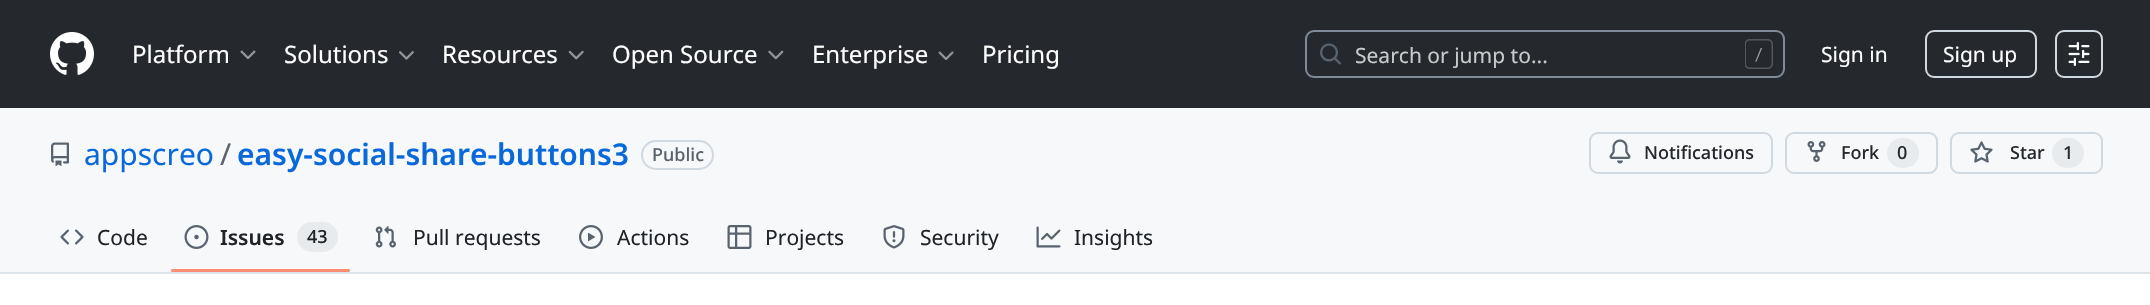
#include "include/core/SkBlurTypes.h"
#include "include/core/SkCanvas.h"
#include "include/core/SkData.h"
#include "include/core/SkFont.h"
#include "include/core/SkFontMgr.h"
#include "include/core/SkImage.h"
#include "include/core/SkMaskFilter.h"
#include "include/core/SkPaint.h"
#include "include/core/SkPathBuilder.h"
#include "include/core/SkTextBlob.h"
#include "include/effects/SkDashPathEffect.h"
#include "include/effects/SkGradientShader.h"
#include "include/utils/SkParsePath.h"

extern sk_sp<SkFontMgr> fontMgr;

void draw(SkCanvas* canvas) {
  SkPaint p;
  p.setAntiAlias(true);
  canvas->clear(SK_ColorWHITE);
  p.setColor(SkColorSetRGB(223, 228, 233));
  canvas->drawRect(SkRect::MakeLTRB(0, 273, 2150, 274), p);
  p.setColor(SkColorSetRGB(37, 41, 46));
  canvas->drawRect(SkRect::MakeLTRB(0, 0, 2150, 108), p);
  canvas->drawImageRect(SkImages::DeferredFromEncodedData(SkData::MakeFromFileName("images/1.png")), SkRect::MakeLTRB(50, 32, 94, 75), SkSamplingOptions());
  canvas->drawImageRect(SkImages::DeferredFromEncodedData(SkData::MakeFromFileName("images/2.png")), SkRect::MakeLTRB(240, 50, 256, 60), SkSamplingOptions());
  canvas->drawImageRect(SkImages::DeferredFromEncodedData(SkData::MakeFromFileName("images/3.png")), SkRect::MakeLTRB(399, 51, 414, 60), SkSamplingOptions());
  canvas->drawImageRect(SkImages::DeferredFromEncodedData(SkData::MakeFromFileName("images/4.png")), SkRect::MakeLTRB(568, 50, 584, 60), SkSamplingOptions());
  canvas->drawImageRect(SkImages::DeferredFromEncodedData(SkData::MakeFromFileName("images/5.png")), SkRect::MakeLTRB(768, 50, 784, 60), SkSamplingOptions());
  canvas->drawImageRect(SkImages::DeferredFromEncodedData(SkData::MakeFromFileName("images/6.png")), SkRect::MakeLTRB(938, 51, 954, 60), SkSamplingOptions());
  p.setStyle(SkPaint::kStroke_Style);
  p.setStrokeWidth(2);
  p.setColor(SkColorSetRGB(129, 139, 152));
  canvas->drawRoundRect(SkRect::MakeLTRB(1306, 31, 1784, 77), 8, 8, p);
  canvas->drawImageRect(SkImages::DeferredFromEncodedData(SkData::MakeFromFileName("images/7.png")), SkRect::MakeLTRB(1320, 43, 1341, 65), SkSamplingOptions());
  canvas->drawImageRect(SkImages::DeferredFromEncodedData(SkData::MakeFromFileName("images/8.png")), SkRect::MakeLTRB(1745, 39, 1773, 69), SkSamplingOptions());
  p.setColor(SkColorSetRGB(209, 217, 224));
  canvas->drawRoundRect(SkRect::MakeLTRB(1926, 31, 2036, 77), 8, 8, p);
  canvas->drawRoundRect(SkRect::MakeLTRB(2056, 31, 2102, 77), 8, 8, p);
  canvas->drawImageRect(SkImages::DeferredFromEncodedData(SkData::MakeFromFileName("images/9.png")), SkRect::MakeLTRB(2068, 42, 2090, 66), SkSamplingOptions());
  p.setStyle(SkPaint::kFill_Style);
  p.setColor(SkColorSetRGB(246, 248, 250));
  canvas->drawRect(SkRect::MakeLTRB(0, 108, 2150, 272), p);
  p.setColor(SkColorSetRGB(220, 226, 232));
  canvas->drawRect(SkRect::MakeLTRB(0, 272, 2150, 273), p);
  canvas->drawImageRect(SkImages::DeferredFromEncodedData(SkData::MakeFromFileName("images/10.png")), SkRect::MakeLTRB(51, 142, 69, 166), SkSamplingOptions());
  p.setStyle(SkPaint::kStroke_Style);
  p.setColor(SkColorSetRGB(209, 217, 224));
  canvas->drawRoundRect(SkRect::MakeLTRB(642, 141, 713, 169), 14, 14, p);
  canvas->drawRoundRect(SkRect::MakeLTRB(1590, 133, 1772, 173), 8, 8, p);
  canvas->drawImageRect(SkImages::DeferredFromEncodedData(SkData::MakeFromFileName("images/11.png")), SkRect::MakeLTRB(1609, 139, 1631, 164), SkSamplingOptions());
  canvas->drawRoundRect(SkRect::MakeLTRB(1786, 133, 1937, 173), 8, 8, p);
  canvas->drawImageRect(SkImages::DeferredFromEncodedData(SkData::MakeFromFileName("images/12.png")), SkRect::MakeLTRB(1807, 141, 1826, 162), SkSamplingOptions());
  p.setStyle(SkPaint::kFill_Style);
  p.setColor(SkColorSetRGB(232, 235, 238));
  canvas->drawRoundRect(SkRect::MakeLTRB(1887, 138, 1919, 168), 15, 15, p);
  p.setStyle(SkPaint::kStroke_Style);
  p.setColor(SkColorSetRGB(209, 217, 224));
  canvas->drawRoundRect(SkRect::MakeLTRB(1951, 133, 2102, 173), 8, 8, p);
  canvas->drawImageRect(SkImages::DeferredFromEncodedData(SkData::MakeFromFileName("images/13.png")), SkRect::MakeLTRB(1970, 141, 1993, 163), SkSamplingOptions());
  p.setStyle(SkPaint::kFill_Style);
  p.setColor(SkColorSetRGB(232, 235, 238));
  canvas->drawRoundRect(SkRect::MakeLTRB(2052, 138, 2084, 168), 15, 15, p);
  canvas->drawImageRect(SkImages::DeferredFromEncodedData(SkData::MakeFromFileName("images/14.png")), SkRect::MakeLTRB(60, 229, 84, 245), SkSamplingOptions());
  canvas->drawImageRect(SkImages::DeferredFromEncodedData(SkData::MakeFromFileName("images/15.png")), SkRect::MakeLTRB(184, 225, 209, 249), SkSamplingOptions());
  canvas->drawRoundRect(SkRect::MakeLTRB(297, 222, 338, 252), 15, 15, p);
  p.setColor(SkColorSetRGB(253, 140, 115));
  canvas->drawRoundRect(SkRect::MakeLTRB(171, 269, 350, 272), 1.5f, 1.5f, p);
  canvas->drawImageRect(SkImages::DeferredFromEncodedData(SkData::MakeFromFileName("images/16.png")), SkRect::MakeLTRB(375, 226, 396, 248), SkSamplingOptions());
  canvas->drawImageRect(SkImages::DeferredFromEncodedData(SkData::MakeFromFileName("images/17.png")), SkRect::MakeLTRB(579, 225, 603, 249), SkSamplingOptions());
  canvas->drawImageRect(SkImages::DeferredFromEncodedData(SkData::MakeFromFileName("images/18.png")), SkRect::MakeLTRB(727, 225, 752, 249), SkSamplingOptions());
  canvas->drawImageRect(SkImages::DeferredFromEncodedData(SkData::MakeFromFileName("images/19.png")), SkRect::MakeLTRB(883, 225, 905, 249), SkSamplingOptions());
  canvas->drawImageRect(SkImages::DeferredFromEncodedData(SkData::MakeFromFileName("images/20.png")), SkRect::MakeLTRB(1036, 226, 1061, 248), SkSamplingOptions());
  SkFont font1(fontMgr->matchFamilyStyle("Noto Sans", SkFontStyle::Normal()), 24);
  font1.setSubpixel(true);
  p.setColor(SK_ColorWHITE);
  canvas->drawString("Platform", 132, 63, font1, p);
  canvas->drawString("Solutions", 284, 63, font1, p);
  canvas->drawString("Resources", 442, 63, font1, p);
  canvas->drawString("Open Source", 612, 63, font1, p);
  canvas->drawString("Enterprise", 812, 63, font1, p);
  canvas->drawString("Pricing", 982, 63, font1, p);
  SkFont font2(fontMgr->matchFamilyStyle("Noto Sans", SkFontStyle::Normal()), 21);
  font2.setSubpixel(true);
  p.setColor(SkColorSetRGB(201, 202, 203));
  canvas->drawString("Search or jump to...", 1355, 63, font2, p);
  p.setColor(SK_ColorWHITE);
  canvas->drawString("Sign in", 1821, 62, font2, p);
  canvas->drawString("Sign up", 1943, 62, font2, p);
  SkFont font3(fontMgr->matchFamilyStyle("Noto Sans", SkFontStyle::Normal()), 30);
  font3.setSubpixel(true);
  p.setColor(SkColorSetRGB(9, 105, 218));
  canvas->drawString("appscreo", 84, 165, font3, p);
  p.setColor(SkColorSetRGB(89, 99, 110));
  canvas->drawString("/", 220, 165, font3, p);
  SkFont font4(fontMgr->matchFamilyStyle("Noto Sans", SkFontStyle(600, SkFontStyle::kNormal_Width, SkFontStyle::kUpright_Slant)), 30);
  font4.setSubpixel(true);
  p.setColor(SkColorSetRGB(9, 105, 218));
  canvas->drawString("easy-social-share-buttons3", 237, 165, font4, p);
  SkFont font5(fontMgr->matchFamilyStyle("Noto Sans", SkFontStyle(500, SkFontStyle::kNormal_Width, SkFontStyle::kUpright_Slant)), 18);
  font5.setSubpixel(true);
  p.setColor(SkColorSetRGB(89, 99, 110));
  canvas->drawString("Public", 652, 161, font5, p);
  p.setColor(SkColorSetRGB(37, 41, 46));
  canvas->drawString("Notifications", 1644, 159, font5, p);
  canvas->drawString("Fork", 1841, 159, font5, p);
  canvas->drawString("0", 1897, 159, font5, p);
  canvas->drawString("Star", 2010, 159, font5, p);
  canvas->drawString("1", 2063, 159, font5, p);
  p.setColor(SkColorSetRGB(31, 35, 40));
  canvas->drawString("Code", 97, 245, font2, p);
  SkFont font6(fontMgr->matchFamilyStyle("Noto Sans", SkFontStyle(600, SkFontStyle::kNormal_Width, SkFontStyle::kUpright_Slant)), 21);
  font6.setSubpixel(true);
  canvas->drawString("Issues", 220, 245, font6, p);
  canvas->drawString("43", 307, 243, font5, p);
  canvas->drawString("Pull requests", 413, 245, font2, p);
  canvas->drawString("Actions", 617, 245, font2, p);
  canvas->drawString("Projects", 765, 245, font2, p);
  canvas->drawString("Security", 920, 245, font2, p);
  canvas->drawString("Insights", 1074, 245, font2, p);
}
